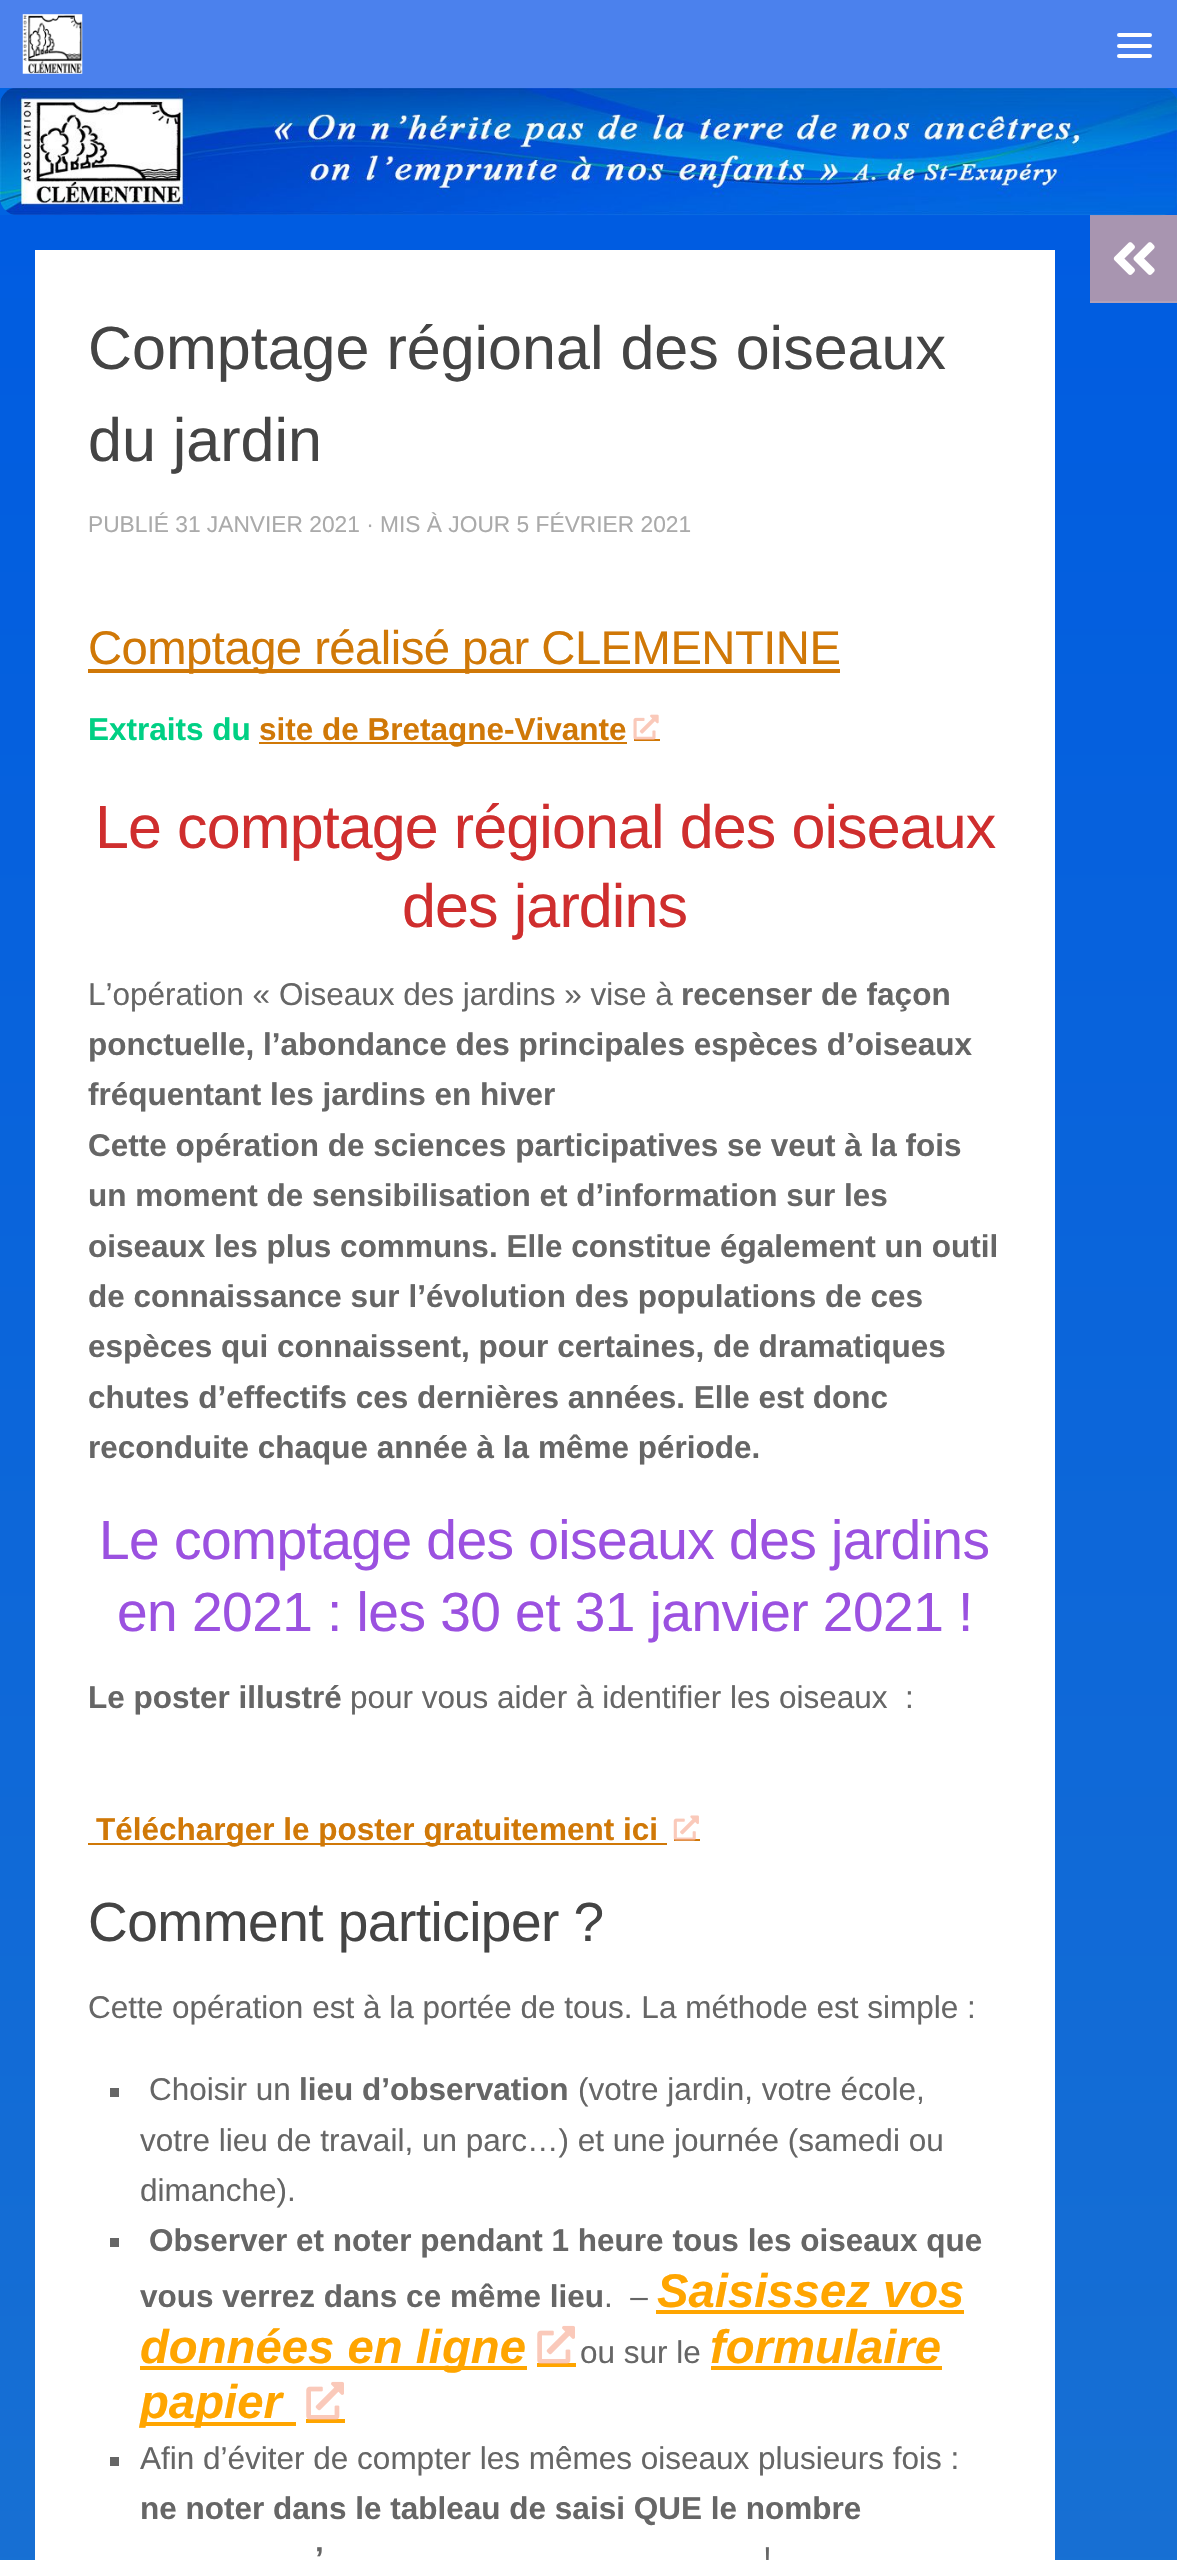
#include "include/core/SkBlurTypes.h"
#include "include/core/SkCanvas.h"
#include "include/core/SkData.h"
#include "include/core/SkFont.h"
#include "include/core/SkFontMgr.h"
#include "include/core/SkImage.h"
#include "include/core/SkMaskFilter.h"
#include "include/core/SkPaint.h"
#include "include/core/SkPathBuilder.h"
#include "include/core/SkTextBlob.h"
#include "include/effects/SkDashPathEffect.h"
#include "include/effects/SkGradientShader.h"
#include "include/utils/SkParsePath.h"

extern sk_sp<SkFontMgr> fontMgr;

void draw(SkCanvas* canvas) {
  SkPaint p;
  p.setAntiAlias(true);
  auto spacedText = [&](const char* s, float x, float y, const SkFont& font, const SkPaint& ink, float letter, float word) {
    std::vector<SkGlyphID> glyphs(font.countText(s, strlen(s), SkTextEncoding::kUTF8));
    std::vector<float> xs(glyphs.size());
    font.textToGlyphs(s, strlen(s), SkTextEncoding::kUTF8, glyphs);
    font.getXPos(glyphs, xs, x);
    float extra = 0;
    for (size_t i = 0; i < glyphs.size(); i++) {
      xs[i] += extra;
      extra += letter + word * (glyphs[i] == font.unicharToGlyph(' '));
    }
    canvas->drawTextBlob(SkTextBlob::MakeFromPosHGlyphs(glyphs, xs, y, font), 0, 0, ink);
  };
  canvas->clear(SK_ColorWHITE);
  p.setColor(SkColorSetRGB(1, 99, 225));
  canvas->drawRect(SkRect::MakeLTRB(0, 88, 1177, 215), p);
  p.setColor(SkColorSetRGB(75, 129, 237));
  canvas->drawRect(SkRect::MakeLTRB(0, 0, 1177, 88), p);
  canvas->drawImageRect(SkImages::DeferredFromEncodedData(SkData::MakeFromFileName("images/1.png")), SkRect::MakeLTRB(22, 14, 83, 74), SkSamplingOptions());
  p.setColor(SK_ColorWHITE);
  canvas->drawRoundRect(SkRect::MakeLTRB(1117, 33, 1152, 37), 2, 2, p);
  canvas->drawRoundRect(SkRect::MakeLTRB(1117, 44, 1152, 48), 2, 2, p);
  canvas->drawRoundRect(SkRect::MakeLTRB(1117, 54, 1152, 58), 2, 2, p);
  {
    const SkColor colors[] = {SkColorSetRGB(0, 92, 225), SkColorSetRGB(60, 143, 188)};
    const float stops[] = {0, 1};
    const SkPoint ends[] = {{589, 215}, {589, 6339}};
    p.setShader(SkGradientShader::MakeLinear(ends, colors, stops, 2, SkTileMode::kClamp));
    p.setAlpha(255);
  }
  canvas->drawRect(SkRect::MakeLTRB(0, 215, 1177, 2560), p);
  p.setShader(nullptr);
  p.setColor(SkColorSetRGB(168, 149, 176));
  canvas->drawRect(SkRect::MakeLTRB(1090, 215, 1177, 301), p);
  canvas->drawImageRect(SkImages::DeferredFromEncodedData(SkData::MakeFromFileName("images/2.png")), SkRect::MakeLTRB(0, 88, 1177, 216), SkSamplingOptions());
  p.setColor(SkColorSetRGB(177, 160, 184));
  canvas->drawRect(SkRect::MakeLTRB(1090, 301, 1177, 303), p);
  canvas->drawImageRect(SkImages::DeferredFromEncodedData(SkData::MakeFromFileName("images/3.png")), SkRect::MakeLTRB(1113, 242, 1155, 275), SkSamplingOptions());
  p.setColor(SK_ColorWHITE);
  canvas->drawRect(SkRect::MakeLTRB(35, 250, 1055, 2560), p);
  p.setColor(SkColorSetRGB(208, 120, 7));
  canvas->drawRect(SkRect::MakeLTRB(88, 669, 840, 673), p);
  canvas->drawRect(SkRect::MakeLTRB(259, 742, 627, 744), p);
  canvas->drawRect(SkRect::MakeLTRB(634, 739, 660, 741), p);
  canvas->drawImageRect(SkImages::DeferredFromEncodedData(SkData::MakeFromFileName("images/4.png")), SkRect::MakeLTRB(633, 714, 659, 740), SkSamplingOptions());
  canvas->drawRect(SkRect::MakeLTRB(88, 1843, 667, 1845), p);
  canvas->drawRect(SkRect::MakeLTRB(674, 1839, 700, 1841), p);
  canvas->drawImageRect(SkImages::DeferredFromEncodedData(SkData::MakeFromFileName("images/5.png")), SkRect::MakeLTRB(673, 1815, 699, 1841), SkSamplingOptions());
  p.setColor(SkColorSetRGB(102, 102, 102));
  canvas->drawRect(SkRect::MakeLTRB(110, 2088, 119, 2097), p);
  canvas->drawRect(SkRect::MakeLTRB(110, 2238, 119, 2247), p);
  p.setColor(SkColorSetRGB(255, 165, 0));
  canvas->drawRect(SkRect::MakeLTRB(656, 2310, 964, 2314), p);
  canvas->drawRect(SkRect::MakeLTRB(140, 2366, 527, 2370), p);
  canvas->drawRect(SkRect::MakeLTRB(537, 2363, 576, 2367), p);
  canvas->drawImageRect(SkImages::DeferredFromEncodedData(SkData::MakeFromFileName("images/6.png")), SkRect::MakeLTRB(537, 2325, 575, 2364), SkSamplingOptions());
  canvas->drawRect(SkRect::MakeLTRB(711, 2366, 942, 2370), p);
  canvas->drawRect(SkRect::MakeLTRB(140, 2422, 296, 2426), p);
  canvas->drawRect(SkRect::MakeLTRB(306, 2419, 345, 2423), p);
  canvas->drawImageRect(SkImages::DeferredFromEncodedData(SkData::MakeFromFileName("images/6.png")), SkRect::MakeLTRB(306, 2381, 344, 2420), SkSamplingOptions());
  p.setColor(SkColorSetRGB(102, 102, 102));
  canvas->drawRect(SkRect::MakeLTRB(110, 2457, 119, 2466), p);
  SkFont font1(fontMgr->matchFamilyStyle("Liberation Sans", SkFontStyle::Normal()), 61);
  font1.setSubpixel(true);
  p.setColor(SkColorSetRGB(68, 68, 68));
  canvas->drawString("Comptage régional des oiseaux", 88, 369, font1, p);
  canvas->drawString("du jardin", 88, 461, font1, p);
  SkFont font2(fontMgr->matchFamilyStyle("Liberation Sans", SkFontStyle::Normal()), 22.75f);
  font2.setSubpixel(true);
  p.setColor(SkColorSetRGB(170, 170, 170));
  canvas->drawString("PUBLIÉ 31 JANVIER 2021 · MIS À JOUR 5 FÉVRIER 2021", 88, 532, font2, p);
  SkFont font3(fontMgr->matchFamilyStyle("Liberation Sans", SkFontStyle::Normal()), 47.25f);
  font3.setSubpixel(true);
  p.setColor(SkColorSetRGB(208, 120, 7));
  spacedText("Comptage réalisé par CLEMENTINE", 88, 664, font3, p, -0.55f, 0);
  SkFont font4(fontMgr->matchFamilyStyle("Liberation Sans", SkFontStyle::Bold()), 31.5f);
  font4.setSubpixel(true);
  p.setColor(SkColorSetRGB(0, 208, 132));
  canvas->drawString("Extraits du", 88, 740, font4, p);
  p.setColor(SkColorSetRGB(208, 120, 7));
  canvas->drawString("site de Bretagne-Vivante", 259, 740, font4, p);
  p.setColor(SkColorSetRGB(207, 46, 46));
  spacedText("Le comptage régional des oiseaux", 95, 848, font1, p, -0.9f, 0);
  spacedText("des jardins", 402, 927, font1, p, -0.9f, 0);
  SkFont font5(fontMgr->matchFamilyStyle("Liberation Sans", SkFontStyle::Normal()), 31.5f);
  font5.setSubpixel(true);
  p.setColor(SkColorSetRGB(102, 102, 102));
  canvas->drawString("L’opération « Oiseaux des jardins » vise à", 88, 1005, font5, p);
  canvas->drawString("recenser de façon", 681, 1005, font4, p);
  canvas->drawString("ponctuelle, l’abondance des principales espèces d’oiseaux", 88, 1055, font4, p);
  canvas->drawString("fréquentant les jardins en hiver", 88, 1105, font4, p);
  canvas->drawString("Cette opération de sciences participatives se veut à la fois", 88, 1156, font4, p);
  canvas->drawString("un moment de sensibilisation et d’information sur les", 88, 1206, font4, p);
  canvas->drawString("oiseaux les plus communs. Elle constitue également un outil", 88, 1257, font4, p);
  canvas->drawString("de connaissance sur l’évolution des populations de ces", 88, 1307, font4, p);
  canvas->drawString("espèces qui connaissent, pour certaines, de dramatiques", 88, 1357, font4, p);
  canvas->drawString("chutes d’effectifs ces dernières années. Elle est donc", 88, 1408, font4, p);
  canvas->drawString("reconduite chaque année à la même période.", 88, 1458, font4, p);
  SkFont font6(fontMgr->matchFamilyStyle("Liberation Sans", SkFontStyle::Normal()), 55.1f);
  font6.setSubpixel(true);
  p.setColor(SkColorSetRGB(155, 81, 224));
  spacedText("Le comptage des oiseaux des jardins", 99, 1559, font6, p, -0.55f, 0);
  spacedText("en 2021 : les 30 et 31 janvier 2021 !", 117, 1631, font6, p, -0.55f, 0);
  p.setColor(SkColorSetRGB(102, 102, 102));
  canvas->drawString("Le poster illustré", 88, 1708, font4, p);
  canvas->drawString("pour vous aider à identifier les oiseaux  :", 350, 1708, font5, p);
  p.setColor(SkColorSetRGB(208, 120, 7));
  canvas->drawString("Télécharger le poster gratuitement ici", 96, 1840, font4, p);
  p.setColor(SkColorSetRGB(68, 68, 68));
  spacedText("Comment participer ?", 88, 1941, font6, p, -0.55f, 0);
  p.setColor(SkColorSetRGB(102, 102, 102));
  canvas->drawString("Cette opération est à la portée de tous. La méthode est simple :", 88, 2018, font5, p);
  canvas->drawString("Choisir un", 149, 2100, font5, p);
  canvas->drawString("lieu d’observation", 299, 2100, font4, p);
  canvas->drawString("(votre jardin, votre école,", 578, 2100, font5, p);
  canvas->drawString("votre lieu de travail, un parc…) et une journée (samedi ou", 140, 2151, font5, p);
  canvas->drawString("dimanche).", 140, 2201, font5, p);
  canvas->drawString("Observer et noter pendant 1 heure tous les oiseaux que", 149, 2251, font4, p);
  canvas->drawString("vous verrez dans ce même lieu", 140, 2307, font4, p);
  canvas->drawString(".  –", 604, 2307, font5, p);
  SkFont font7(fontMgr->matchFamilyStyle("Liberation Sans", SkFontStyle::BoldItalic()), 47.25f);
  font7.setSubpixel(true);
  p.setColor(SkColorSetRGB(255, 165, 0));
  canvas->drawString("Saisissez vos", 657, 2307, font7, p);
  canvas->drawString("données en ligne", 140, 2363, font7, p);
  p.setColor(SkColorSetRGB(102, 102, 102));
  canvas->drawString("ou sur le", 580, 2363, font5, p);
  p.setColor(SkColorSetRGB(255, 165, 0));
  canvas->drawString("formulaire", 710, 2363, font7, p);
  canvas->drawString("papier", 140, 2418, font7, p);
  p.setColor(SkColorSetRGB(102, 102, 102));
  canvas->drawString("Afin d’éviter de compter les mêmes oiseaux plusieurs fois :", 140, 2469, font5, p);
  canvas->drawString("ne noter dans le tableau de saisi QUE le nombre", 140, 2519, font4, p);
  canvas->drawString("’", 315, 2569, font4, p);
  canvas->drawString("!", 763, 2569, font5, p);
}
